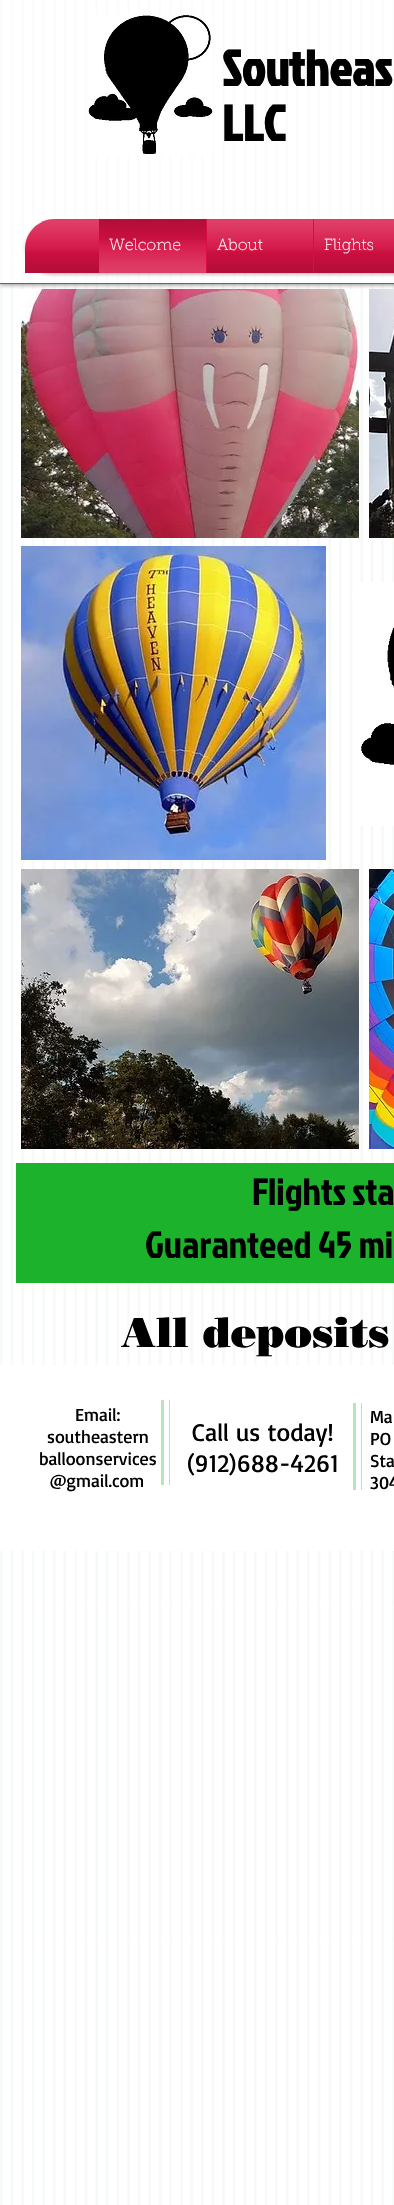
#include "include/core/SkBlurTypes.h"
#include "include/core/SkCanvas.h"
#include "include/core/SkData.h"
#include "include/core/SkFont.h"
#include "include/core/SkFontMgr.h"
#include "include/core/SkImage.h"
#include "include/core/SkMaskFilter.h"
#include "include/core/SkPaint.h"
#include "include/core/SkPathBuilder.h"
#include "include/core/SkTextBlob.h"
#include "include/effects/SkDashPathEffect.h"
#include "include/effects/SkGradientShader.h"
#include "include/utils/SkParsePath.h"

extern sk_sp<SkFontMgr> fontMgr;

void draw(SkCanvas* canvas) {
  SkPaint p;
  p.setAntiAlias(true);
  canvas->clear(SK_ColorWHITE);
  canvas->drawImageRect(SkImages::DeferredFromEncodedData(SkData::MakeFromFileName("images/1.png")), SkRect::MakeLTRB(0, 0, 394, 2205), SkSamplingOptions());
  canvas->save();
  canvas->clipRect(SkRect::MakeLTRB(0, 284, 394, 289));
  p.setColor(SkColorSetARGB(153, 0, 0, 0));
  p.setMaskFilter(SkMaskFilter::MakeBlur(kNormal_SkBlurStyle, 2.5f));
  canvas->drawRect(SkRect::MakeLTRB(0, 0, 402, 284), p);
  p.setMaskFilter(nullptr);
  canvas->restore();
  p.setColor(SkColorSetARGB(130, 255, 255, 255));
  canvas->drawRect(SkRect::MakeLTRB(0, 0, 394, 284), p);
  p.setColor(SkColorSetARGB(153, 0, 0, 0));
  canvas->drawRect(SkRect::MakeLTRB(0, 283, 394, 284), p);
  canvas->drawImageRect(SkImages::DeferredFromEncodedData(SkData::MakeFromFileName("images/2.png")), SkRect::MakeLTRB(88, 14, 213, 156), SkSamplingOptions());
  p.setColor(SkColorSetARGB(153, 162, 158, 158));
  p.setMaskFilter(SkMaskFilter::MakeBlur(kNormal_SkBlurStyle, 1.5f));
  canvas->drawRoundRect(SkRect::MakeLTRB(25, 221, 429, 275), 30, 30, p);
  p.setMaskFilter(nullptr);
  p.setColor(SkColorSetRGB(214, 16, 67));
  canvas->drawPath(SkPathBuilder().moveTo(55, 219).lineTo(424, 219).lineTo(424, 243).cubicTo(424, 259.5f, 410.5f, 273, 394, 273).lineTo(25, 273).lineTo(25, 249).cubicTo(25, 232.5f, 38.5f, 219, 55, 219).close().detach(), p);
  canvas->drawImageRect(SkImages::DeferredFromEncodedData(SkData::MakeFromFileName("images/3.png")), SkRect::MakeLTRB(25, 219, 99, 252), SkSamplingOptions());
  canvas->drawImageRect(SkImages::DeferredFromEncodedData(SkData::MakeFromFileName("images/4.png")), SkRect::MakeLTRB(25, 247, 99, 273), SkSamplingOptions());
  canvas->drawImageRect(SkImages::DeferredFromEncodedData(SkData::MakeFromFileName("images/11.png")), SkRect::MakeLTRB(21, 289, 359, 538), SkSamplingOptions());
  canvas->drawImageRect(SkImages::DeferredFromEncodedData(SkData::MakeFromFileName("images/12.png")), SkRect::MakeLTRB(369, 289, 394, 538), SkSamplingOptions());
  canvas->drawImageRect(SkImages::DeferredFromEncodedData(SkData::MakeFromFileName("images/13.png")), SkRect::MakeLTRB(21, 546, 326, 860), SkSamplingOptions());
  canvas->drawImageRect(SkImages::DeferredFromEncodedData(SkData::MakeFromFileName("images/14.png")), SkRect::MakeLTRB(360, 582, 394, 826), SkSamplingOptions());
  canvas->drawImageRect(SkImages::DeferredFromEncodedData(SkData::MakeFromFileName("images/15.png")), SkRect::MakeLTRB(21, 869, 359, 1149), SkSamplingOptions());
  canvas->drawImageRect(SkImages::DeferredFromEncodedData(SkData::MakeFromFileName("images/16.png")), SkRect::MakeLTRB(369, 869, 394, 1149), SkSamplingOptions());
  p.setColor(SkColorSetRGB(29, 178, 43));
  canvas->drawRect(SkRect::MakeLTRB(16, 1163, 394, 1283), p);
  p.setColor(SK_ColorWHITE);
  canvas->drawRect(SkRect::MakeLTRB(0, 1365, 394, 1551), p);
  p.setColor(SkColorSetRGB(183, 230, 187));
  canvas->drawRect(SkRect::MakeLTRB(169, 1400, 170, 1485), p);
  canvas->drawRect(SkRect::MakeLTRB(161, 1400, 164, 1485), p);
  canvas->drawRect(SkRect::MakeLTRB(361, 1403, 362, 1490), p);
  canvas->drawRect(SkRect::MakeLTRB(353, 1403, 356, 1490), p);
  SkFont font1(fontMgr->matchFamilyStyle("Jockey One", SkFontStyle::Bold()), 50);
  font1.setSubpixel(true);
  p.setColor(SK_ColorBLACK);
  canvas->drawString("Southeas", 222, 86, font1, p);
  canvas->drawString("LLC", 222, 141, font1, p);
  SkFont font2(fontMgr->matchFamilyStyle("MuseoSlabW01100", SkFontStyle(100, SkFontStyle::kNormal_Width, SkFontStyle::kUpright_Slant)), 16);
  font2.setSubpixel(true);
  p.setColor(SK_ColorWHITE);
  canvas->drawString("Welcome", 109, 250, font2, p);
  canvas->drawImageRect(SkImages::DeferredFromEncodedData(SkData::MakeFromFileName("images/5.png")), SkRect::MakeLTRB(99, 219, 206, 245), SkSamplingOptions());
  canvas->drawImageRect(SkImages::DeferredFromEncodedData(SkData::MakeFromFileName("images/6.png")), SkRect::MakeLTRB(99, 240, 206, 273), SkSamplingOptions());
  canvas->drawString("About", 217, 250, font2, p);
  canvas->drawImageRect(SkImages::DeferredFromEncodedData(SkData::MakeFromFileName("images/7.png")), SkRect::MakeLTRB(207, 219, 313, 252), SkSamplingOptions());
  canvas->drawImageRect(SkImages::DeferredFromEncodedData(SkData::MakeFromFileName("images/8.png")), SkRect::MakeLTRB(207, 247, 313, 273), SkSamplingOptions());
  canvas->drawString("Flights", 324, 250, font2, p);
  canvas->drawImageRect(SkImages::DeferredFromEncodedData(SkData::MakeFromFileName("images/9.png")), SkRect::MakeLTRB(314, 219, 394, 252), SkSamplingOptions());
  canvas->drawImageRect(SkImages::DeferredFromEncodedData(SkData::MakeFromFileName("images/10.png")), SkRect::MakeLTRB(314, 247, 394, 273), SkSamplingOptions());
  SkFont font3(fontMgr->matchFamilyStyle("Jockey One", SkFontStyle::Normal()), 38);
  font3.setSubpixel(true);
  p.setColor(SK_ColorBLACK);
  canvas->drawString("Flights sta", 252, 1205, font3, p);
  canvas->drawString("Guaranteed 45 mi", 145, 1258, font3, p);
  SkFont font4(fontMgr->matchFamilyStyle("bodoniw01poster", SkFontStyle(900, SkFontStyle::kNormal_Width, SkFontStyle::kUpright_Slant)), 42);
  font4.setSubpixel(true);
  canvas->drawString("All deposits", 121, 1347, font4, p);
  SkFont font5(fontMgr->matchFamilyStyle("Basic", SkFontStyle::Normal()), 18);
  font5.setSubpixel(true);
  canvas->drawString("Email:", 75, 1421, font5, p);
  canvas->drawString("southeastern", 47, 1443, font5, p);
  canvas->drawString("balloonservices", 39, 1465, font5, p);
  canvas->drawString("@gmail.com", 50, 1487, font5, p);
  SkFont font6(fontMgr->matchFamilyStyle("Basic", SkFontStyle::Normal()), 25);
  font6.setSubpixel(true);
  canvas->drawString("Call us today!", 192, 1441, font6, p);
  canvas->drawString("(912)688-4261", 187, 1472, font6, p);
  canvas->drawString("Ma", 370, 1423, font5, p);
  canvas->drawString("PO", 370, 1445, font5, p);
  canvas->drawString("Sta", 370, 1467, font5, p);
  canvas->drawString("304", 370, 1489, font5, p);
}
